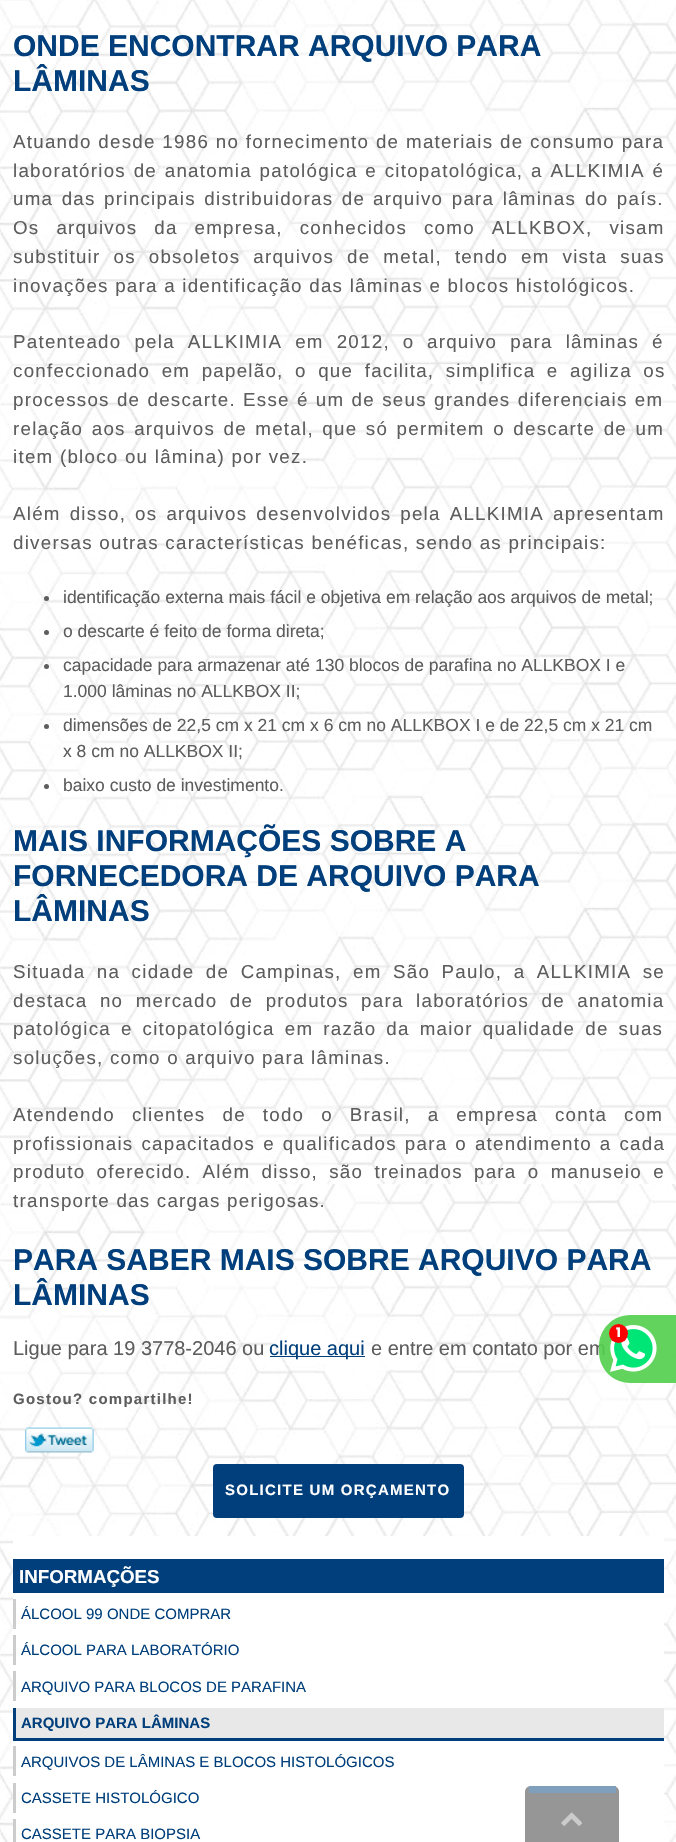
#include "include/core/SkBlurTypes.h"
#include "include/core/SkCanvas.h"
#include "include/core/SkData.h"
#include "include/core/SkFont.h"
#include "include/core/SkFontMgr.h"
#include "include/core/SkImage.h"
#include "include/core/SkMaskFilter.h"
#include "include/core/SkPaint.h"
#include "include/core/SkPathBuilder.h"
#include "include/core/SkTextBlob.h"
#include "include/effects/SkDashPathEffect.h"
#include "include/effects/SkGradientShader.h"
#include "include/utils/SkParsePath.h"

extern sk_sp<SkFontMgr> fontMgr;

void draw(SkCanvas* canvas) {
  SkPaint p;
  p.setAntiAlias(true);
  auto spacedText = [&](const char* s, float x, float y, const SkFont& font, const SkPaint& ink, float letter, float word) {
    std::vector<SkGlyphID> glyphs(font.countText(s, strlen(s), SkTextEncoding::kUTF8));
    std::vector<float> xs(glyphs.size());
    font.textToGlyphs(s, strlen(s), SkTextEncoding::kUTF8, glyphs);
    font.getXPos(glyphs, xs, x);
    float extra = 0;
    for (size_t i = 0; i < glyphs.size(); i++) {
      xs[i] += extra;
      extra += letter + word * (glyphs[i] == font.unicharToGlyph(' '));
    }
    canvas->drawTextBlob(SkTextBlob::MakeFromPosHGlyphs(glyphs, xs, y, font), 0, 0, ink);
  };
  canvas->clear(SK_ColorWHITE);
  canvas->drawImageRect(SkImages::DeferredFromEncodedData(SkData::MakeFromFileName("images/1.png")), SkRect::MakeLTRB(0, 0, 676, 1842), SkSamplingOptions());
  p.setColor(SkColorSetRGB(93, 93, 93));
  canvas->drawCircle(46.5f, 598.5f, 2.5f, p);
  canvas->drawCircle(46.5f, 632.5f, 2.5f, p);
  canvas->drawCircle(46.5f, 666.5f, 2.5f, p);
  canvas->drawCircle(46.5f, 726.5f, 2.5f, p);
  canvas->drawCircle(46.5f, 786.5f, 2.5f, p);
  p.setColor(SkColorSetRGB(0, 63, 123));
  canvas->drawRect(SkRect::MakeLTRB(270, 1356, 365, 1357), p);
  canvas->drawImageRect(SkImages::DeferredFromEncodedData(SkData::MakeFromFileName("images/2.png")), SkRect::MakeLTRB(25, 1427, 94, 1453), SkSamplingOptions());
  canvas->drawRoundRect(SkRect::MakeLTRB(213, 1464, 464, 1518), 4, 4, p);
  p.setColor(SK_ColorWHITE);
  canvas->drawRect(SkRect::MakeLTRB(13, 1536, 664, 1842), p);
  p.setColor(SkColorSetRGB(0, 63, 123));
  canvas->drawRect(SkRect::MakeLTRB(13, 1559, 664, 1593), p);
  p.setColor(SkColorSetRGB(204, 204, 204));
  canvas->drawRect(SkRect::MakeLTRB(13, 1599, 16, 1629), p);
  canvas->drawRect(SkRect::MakeLTRB(13, 1635, 16, 1665), p);
  canvas->drawRect(SkRect::MakeLTRB(13, 1671, 16, 1701), p);
  p.setColor(SkColorSetRGB(232, 232, 232));
  canvas->drawRect(SkRect::MakeLTRB(16, 1708, 664, 1738), p);
  p.setColor(SkColorSetRGB(0, 63, 123));
  canvas->drawRect(SkRect::MakeLTRB(13, 1738, 664, 1741), p);
  canvas->drawRect(SkRect::MakeLTRB(13, 1708, 16, 1740), p);
  p.setColor(SkColorSetRGB(204, 204, 204));
  canvas->drawRect(SkRect::MakeLTRB(13, 1746, 16, 1776), p);
  canvas->drawRect(SkRect::MakeLTRB(13, 1783, 16, 1813), p);
  canvas->drawRect(SkRect::MakeLTRB(13, 1819, 16, 1842), p);
  p.setColor(SkColorSetRGB(150, 150, 150));
  canvas->drawPath(SkPathBuilder().moveTo(531, 1786).lineTo(613, 1786).cubicTo(616.5f, 1786, 619, 1788.5f, 619, 1792).lineTo(619, 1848).lineTo(525, 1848).lineTo(525, 1792).cubicTo(525, 1788.5f, 527.5f, 1786, 531, 1786).close().detach(), p);
  p.setColor(SkColorSetRGB(128, 159, 189));
  canvas->drawRect(SkRect::MakeLTRB(529, 1786, 616, 1793), p);
  canvas->drawImageRect(SkImages::DeferredFromEncodedData(SkData::MakeFromFileName("images/4.png")), SkRect::MakeLTRB(561, 1812, 582, 1826), SkSamplingOptions());
  SkFont font1(fontMgr->matchFamilyStyle("Liberation Sans", SkFontStyle::Bold()), 30);
  font1.setSubpixel(true);
  p.setColor(SkColorSetRGB(0, 63, 123));
  canvas->drawString("ONDE ENCONTRAR ARQUIVO PARA", 13, 56, font1, p);
  canvas->drawString("LÂMINAS", 13, 91, font1, p);
  SkFont font2(fontMgr->matchFamilyStyle("Liberation Sans", SkFontStyle::Normal()), 18.75f);
  font2.setSubpixel(true);
  p.setColor(SkColorSetRGB(93, 93, 93));
  spacedText("Atuando desde 1986 no fornecimento de materiais de consumo para", 13, 148, font2, p, 1.25f, 0.25f);
  spacedText("laboratórios de anatomia patológica e citopatológica, a ALLKIMIA é", 13, 177, font2, p, 1.25f, 1.25f);
  spacedText("uma das principais distribuidoras de", 13, 205, font2, p, 1.25f, 2);
  spacedText("arquivo para lâminas", 373, 205, font2, p, 1.25f, 2);
  spacedText("do país.", 585, 205, font2, p, 1.25f, 2);
  spacedText("Os arquivos da empresa, conhecidos como ALLKBOX, visam", 13, 234, font2, p, 1.25f, 10.5f);
  spacedText("substituir os obsoletos arquivos de metal, tendo em vista suas", 13, 263, font2, p, 1.25f, 6.5f);
  spacedText("inovações para a identificação das lâminas e blocos histológicos.", 13, 292, font2, p, 1.25f, 0);
  spacedText("Patenteado pela ALLKIMIA em 2012, o", 13, 348, font2, p, 1.25f, 6.5f);
  spacedText("arquivo para lâminas", 427, 348, font2, p, 1.25f, 6.5f);
  spacedText("é", 652, 348, font2, p, 1.25f, 0);
  spacedText("confeccionado em papelão, o que facilita, simplifica e agiliza os", 13, 377, font2, p, 1.25f, 5);
  spacedText("processos de descarte. Esse é um de seus grandes diferenciais em", 13, 406, font2, p, 1.25f, 0.75f);
  spacedText("relação aos arquivos de metal, que só permitem o descarte de um", 13, 435, font2, p, 1.25f, 2);
  spacedText("item (bloco ou lâmina) por vez.", 13, 463, font2, p, 1.25f, 0);
  spacedText("Além disso, os arquivos desenvolvidos pela ALLKIMIA apresentam", 13, 520, font2, p, 1.25f, 2.5f);
  spacedText("diversas outras características benéficas, sendo as principais:", 13, 549, font2, p, 1.25f, 0);
  SkFont font3(fontMgr->matchFamilyStyle("Liberation Sans", SkFontStyle::Normal()), 17.5f);
  font3.setSubpixel(true);
  canvas->drawString("identificação externa mais fácil e objetiva em relação aos arquivos de metal;", 63, 603, font3, p);
  canvas->drawString("o descarte é feito de forma direta;", 63, 637, font3, p);
  canvas->drawString("capacidade para armazenar até 130 blocos de parafina no ALLKBOX I e", 63, 671, font3, p);
  canvas->drawString("1.000 lâminas no ALLKBOX II;", 63, 697, font3, p);
  canvas->drawString("dimensões de 22,5 cm x 21 cm x 6 cm no ALLKBOX I e de 22,5 cm x 21 cm", 63, 731, font3, p);
  canvas->drawString("x 8 cm no ALLKBOX II;", 63, 757, font3, p);
  canvas->drawString("baixo custo de investimento.", 63, 791, font3, p);
  p.setColor(SkColorSetRGB(0, 63, 123));
  canvas->drawString("MAIS INFORMAÇÕES SOBRE A", 13, 851, font1, p);
  canvas->drawString("FORNECEDORA DE ARQUIVO PARA", 13, 886, font1, p);
  canvas->drawString("LÂMINAS", 13, 921, font1, p);
  p.setColor(SkColorSetRGB(93, 93, 93));
  spacedText("Situada na cidade de Campinas, em São Paulo, a ALLKIMIA se", 13, 978, font2, p, 1.25f, 5);
  spacedText("destaca no mercado de produtos para laboratórios de anatomia", 13, 1007, font2, p, 1.25f, 6);
  spacedText("patológica e citopatológica em razão da maior qualidade de suas", 13, 1035, font2, p, 1.25f, 3.5f);
  spacedText("soluções, como o arquivo para lâminas.", 13, 1064, font2, p, 1.25f, 0);
  spacedText("Atendendo clientes de todo o Brasil, a empresa conta com", 13, 1121, font2, p, 1.25f, 10.5f);
  spacedText("profissionais capacitados e qualificados para o atendimento a cada", 13, 1150, font2, p, 1.25f, 1.5f);
  spacedText("produto oferecido. Além disso, são treinados para o manuseio e", 13, 1178, font2, p, 1.25f, 4.75f);
  spacedText("transporte das cargas perigosas.", 13, 1207, font2, p, 1.25f, 0);
  p.setColor(SkColorSetRGB(0, 63, 123));
  canvas->drawString("PARA SABER MAIS SOBRE ARQUIVO PARA", 13, 1270, font1, p);
  canvas->drawString("LÂMINAS", 13, 1305, font1, p);
  SkFont font4(fontMgr->matchFamilyStyle("Liberation Sans", SkFontStyle::Normal()), 20);
  font4.setSubpixel(true);
  p.setColor(SkColorSetRGB(93, 93, 93));
  canvas->drawString("Ligue para 19 3778-2046 ou", 13, 1355, font4, p);
  p.setColor(SkColorSetRGB(0, 63, 123));
  canvas->drawString("clique aqui", 269, 1355, font4, p);
  p.setColor(SkColorSetRGB(93, 93, 93));
  canvas->drawString("e entre em contato por em", 371, 1355, font4, p);
  SkFont font5(fontMgr->matchFamilyStyle("Liberation Sans", SkFontStyle::Bold()), 15);
  font5.setSubpixel(true);
  spacedText("Gostou? compartilhe!", 13, 1404, font5, p, 1.25f, 0);
  p.setColor(SK_ColorWHITE);
  spacedText("SOLICITE UM ORÇAMENTO", 225, 1495, font5, p, 1.25f, 0);
  SkFont font6(fontMgr->matchFamilyStyle("Liberation Sans", SkFontStyle::Bold()), 18.75f);
  font6.setSubpixel(true);
  canvas->drawString("INFORMAÇÕES", 19, 1583, font6, p);
  SkFont font7(fontMgr->matchFamilyStyle("Liberation Sans", SkFontStyle::Normal()), 15);
  font7.setSubpixel(true);
  p.setColor(SkColorSetRGB(0, 63, 123));
  canvas->drawString("ÁLCOOL 99 ONDE COMPRAR", 21, 1619, font7, p);
  canvas->drawString("ÁLCOOL PARA LABORATÓRIO", 21, 1655, font7, p);
  canvas->drawString("ARQUIVO PARA BLOCOS DE PARAFINA", 21, 1692, font7, p);
  canvas->drawString("ARQUIVO PARA LÂMINAS", 21, 1728, font5, p);
  canvas->drawString("ARQUIVOS DE LÂMINAS E BLOCOS HISTOLÓGICOS", 21, 1767, font7, p);
  canvas->drawString("CASSETE HISTOLÓGICO", 21, 1803, font7, p);
  canvas->drawString("CASSETE PARA BIOPSIA", 21, 1839, font7, p);
  p.setColor(SkColorSetARGB(232, 82, 208, 77));
  canvas->drawPath(SkPathBuilder().moveTo(630, 1315).lineTo(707, 1315).lineTo(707, 1383).lineTo(630, 1383).cubicTo(613, 1383, 599, 1369, 599, 1352).lineTo(599, 1346).cubicTo(599, 1329, 613, 1315, 630, 1315).close().detach(), p);
  canvas->drawImageRect(SkImages::DeferredFromEncodedData(SkData::MakeFromFileName("images/3.png")), SkRect::MakeLTRB(610, 1325, 657, 1372), SkSamplingOptions());
  p.setColor(SkColorSetRGB(255, 0, 0));
  canvas->drawCircle(618.5f, 1333.5f, 9.5f, p);
  SkFont font8(fontMgr->matchFamilyStyle("Poppins", SkFontStyle::Bold()), 13);
  font8.setSubpixel(true);
  p.setColor(SK_ColorWHITE);
  canvas->drawString("1", 616, 1337, font8, p);
}
